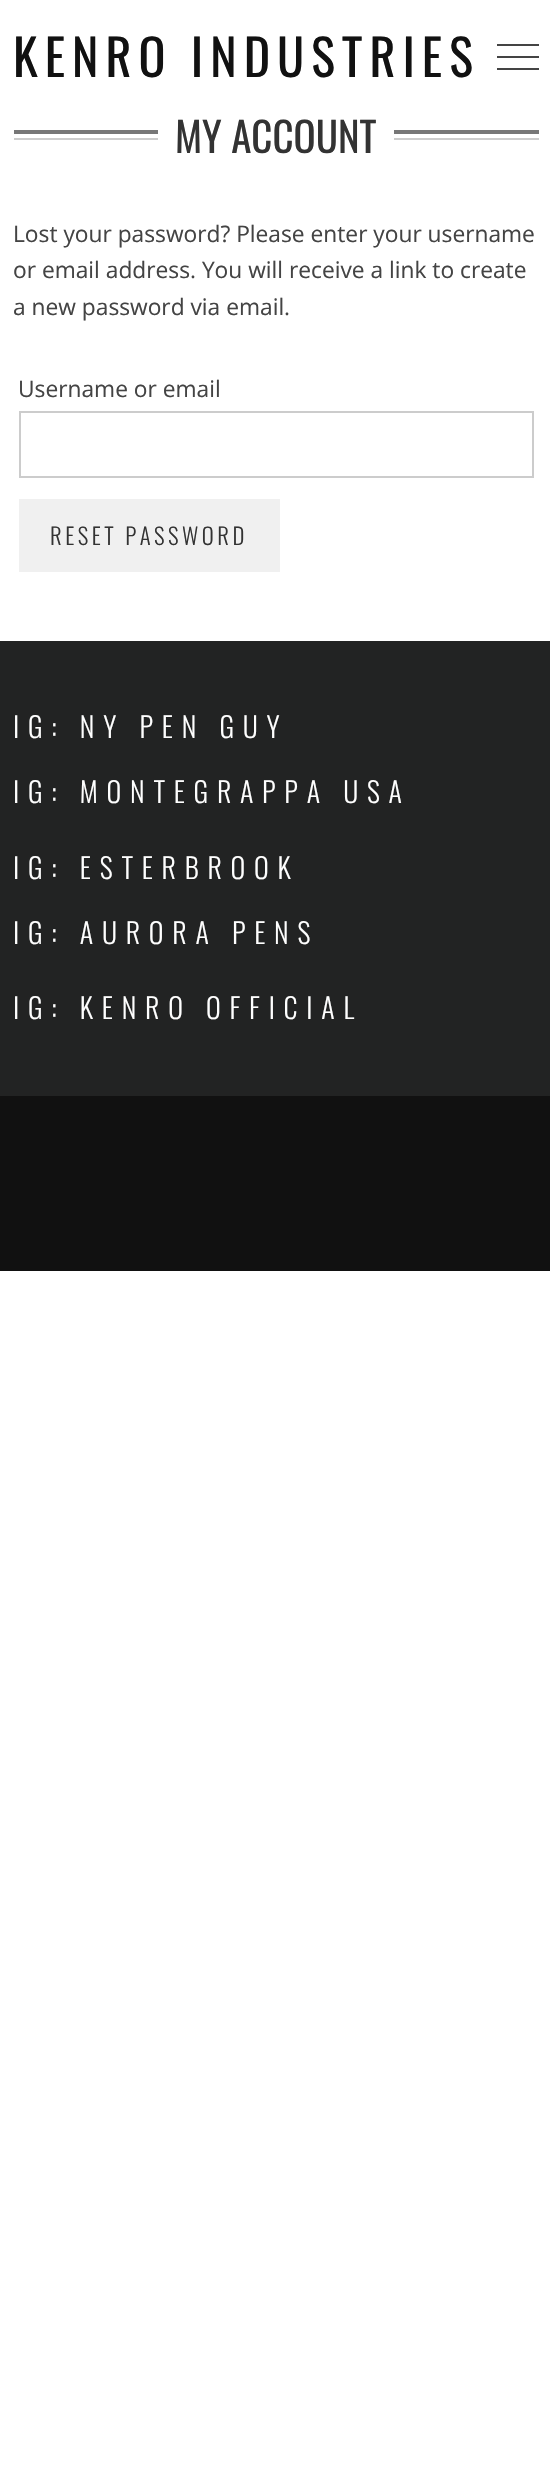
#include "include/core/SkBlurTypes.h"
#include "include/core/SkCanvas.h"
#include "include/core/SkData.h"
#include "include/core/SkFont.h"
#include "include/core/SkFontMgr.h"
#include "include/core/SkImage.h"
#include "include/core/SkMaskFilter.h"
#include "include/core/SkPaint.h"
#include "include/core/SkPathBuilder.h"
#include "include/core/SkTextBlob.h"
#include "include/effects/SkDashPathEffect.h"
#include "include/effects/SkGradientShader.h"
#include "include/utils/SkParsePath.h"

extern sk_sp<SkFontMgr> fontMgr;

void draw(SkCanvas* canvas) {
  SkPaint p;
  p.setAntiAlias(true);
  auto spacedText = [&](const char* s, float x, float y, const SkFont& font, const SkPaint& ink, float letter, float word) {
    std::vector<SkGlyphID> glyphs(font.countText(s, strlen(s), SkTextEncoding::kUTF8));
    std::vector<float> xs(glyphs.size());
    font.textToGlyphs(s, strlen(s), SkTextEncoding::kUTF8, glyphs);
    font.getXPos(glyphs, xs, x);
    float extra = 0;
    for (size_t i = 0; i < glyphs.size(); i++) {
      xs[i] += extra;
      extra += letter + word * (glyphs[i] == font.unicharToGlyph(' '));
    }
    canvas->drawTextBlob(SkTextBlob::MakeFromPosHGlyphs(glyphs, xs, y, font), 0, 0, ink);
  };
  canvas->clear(SK_ColorWHITE);
  p.setColor(SkColorSetRGB(68, 68, 68));
  canvas->drawRect(SkRect::MakeLTRB(497, 44, 539, 46), p);
  canvas->drawRect(SkRect::MakeLTRB(497, 56, 539, 58), p);
  canvas->drawRect(SkRect::MakeLTRB(497, 68, 539, 70), p);
  p.setColor(SkColorSetRGB(119, 119, 119));
  canvas->drawRect(SkRect::MakeLTRB(14, 130, 158, 134), p);
  p.setColor(SkColorSetRGB(204, 204, 204));
  canvas->drawRect(SkRect::MakeLTRB(14, 138, 158, 140), p);
  p.setColor(SkColorSetRGB(119, 119, 119));
  canvas->drawRect(SkRect::MakeLTRB(394, 130, 539, 134), p);
  p.setColor(SkColorSetRGB(204, 204, 204));
  canvas->drawRect(SkRect::MakeLTRB(394, 138, 539, 140), p);
  p.setStyle(SkPaint::kStroke_Style);
  p.setStrokeWidth(2);
  canvas->drawRect(SkRect::MakeLTRB(20, 412, 533, 477), p);
  p.setStyle(SkPaint::kFill_Style);
  p.setColor(SkColorSetRGB(240, 240, 240));
  canvas->drawRect(SkRect::MakeLTRB(19, 499, 280, 572), p);
  p.setColor(SkColorSetRGB(34, 35, 35));
  canvas->drawRect(SkRect::MakeLTRB(0, 641, 550, 1096), p);
  p.setColor(SkColorSetRGB(17, 17, 17));
  canvas->drawRect(SkRect::MakeLTRB(0, 1096, 550, 1271), p);
  SkFont font1(fontMgr->matchFamilyStyle("Oswald", SkFontStyle::Normal()), 50);
  font1.setSubpixel(true);
  spacedText("KENRO INDUSTRIES", 13, 77, font1, p, 7, 0);
  SkFont font2(fontMgr->matchFamilyStyle("Oswald", SkFontStyle::Normal()), 41);
  font2.setSubpixel(true);
  p.setColor(SkColorSetRGB(51, 51, 51));
  canvas->drawString("MY ACCOUNT", 175, 153, font2, p);
  SkFont font3(fontMgr->matchFamilyStyle("Open Sans", SkFontStyle::Normal()), 22.75f);
  font3.setSubpixel(true);
  p.setColor(SkColorSetRGB(68, 68, 68));
  canvas->drawString("Lost your password? Please enter your username", 13, 242, font3, p);
  canvas->drawString("or email address. You will receive a link to create", 13, 278, font3, p);
  canvas->drawString("a new password via email.", 13, 315, font3, p);
  canvas->drawString("Username or email", 18, 397, font3, p);
  SkFont font4(fontMgr->matchFamilyStyle("Oswald", SkFontStyle(300, SkFontStyle::kNormal_Width, SkFontStyle::kUpright_Slant)), 22.75f);
  font4.setSubpixel(true);
  p.setColor(SkColorSetRGB(51, 51, 51));
  spacedText("RESET PASSWORD", 50, 545, font4, p, 3.5f, 0);
  SkFont font5(fontMgr->matchFamilyStyle("Oswald", SkFontStyle(300, SkFontStyle::kNormal_Width, SkFontStyle::kUpright_Slant)), 28);
  font5.setSubpixel(true);
  p.setColor(SK_ColorWHITE);
  spacedText("IG: NY PEN GUY", 13, 738, font5, p, 8.75f, 0);
  spacedText("IG: MONTEGRAPPA USA", 13, 803, font5, p, 8.75f, 0);
  spacedText("IG: ESTERBROOK", 13, 879, font5, p, 8.75f, 0);
  spacedText("IG: AURORA PENS", 13, 944, font5, p, 8.75f, 0);
  spacedText("IG: KENRO OFFICIAL", 13, 1019, font5, p, 8.75f, 0);
}
